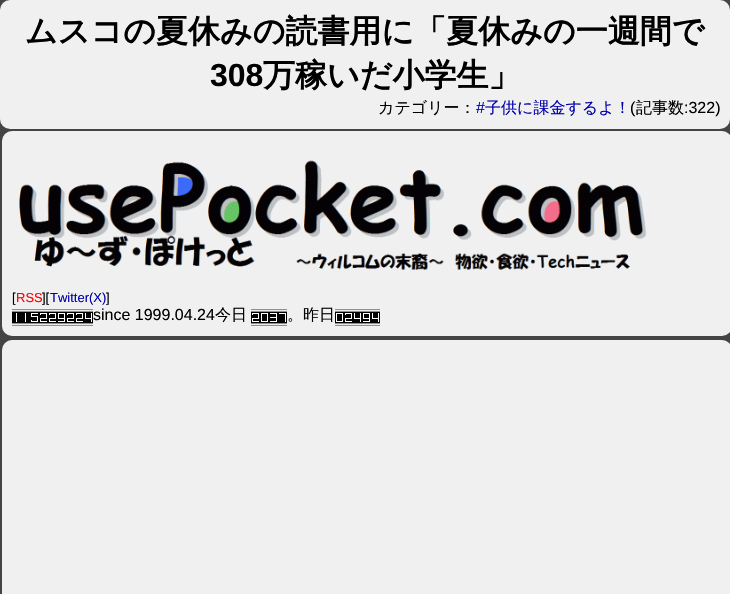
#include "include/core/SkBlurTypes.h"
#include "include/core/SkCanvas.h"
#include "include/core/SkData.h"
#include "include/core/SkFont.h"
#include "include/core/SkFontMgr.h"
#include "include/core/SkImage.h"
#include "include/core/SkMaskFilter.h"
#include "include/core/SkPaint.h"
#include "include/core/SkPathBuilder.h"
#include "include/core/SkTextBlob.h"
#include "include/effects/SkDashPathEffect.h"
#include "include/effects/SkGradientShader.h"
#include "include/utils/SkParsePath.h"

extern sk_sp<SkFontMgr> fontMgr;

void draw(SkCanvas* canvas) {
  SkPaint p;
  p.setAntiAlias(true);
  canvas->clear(SkColorSetRGB(68, 68, 68));
  p.setColor(SkColorSetRGB(240, 240, 240));
  canvas->drawRoundRect(SkRect::MakeLTRB(0, 0, 730, 129), 10, 10, p);
  canvas->drawRoundRect(SkRect::MakeLTRB(2, 131, 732, 336), 10, 10, p);
  canvas->drawImageRect(SkImages::DeferredFromEncodedData(SkData::MakeFromFileName("images/1.png")), SkRect::MakeLTRB(19, 160, 647, 270), SkSamplingOptions());
  canvas->drawImageRect(SkImages::DeferredFromEncodedData(SkData::MakeFromFileName("images/2.png")), SkRect::MakeLTRB(12, 309, 93, 326), SkSamplingOptions());
  canvas->drawImageRect(SkImages::DeferredFromEncodedData(SkData::MakeFromFileName("images/3.png")), SkRect::MakeLTRB(251, 309, 287, 326), SkSamplingOptions());
  canvas->drawImageRect(SkImages::DeferredFromEncodedData(SkData::MakeFromFileName("images/4.png")), SkRect::MakeLTRB(335, 309, 380, 326), SkSamplingOptions());
  canvas->drawRoundRect(SkRect::MakeLTRB(2, 340, 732, 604), 10, 10, p);
  SkFont font1(fontMgr->matchFamilyStyle("WenQuanYi Zen Hei", SkFontStyle::Bold()), 32);
  font1.setSubpixel(true);
  p.setColor(SK_ColorBLACK);
  canvas->drawString("ムスコの夏休みの読書用に「夏休みの一週間で", 25, 42, font1, p);
  SkFont font2(fontMgr->matchFamilyStyle("Liberation Sans", SkFontStyle::Bold()), 32);
  font2.setSubpixel(true);
  canvas->drawString("308", 210, 86, font2, p);
  canvas->drawString("万稼いだ小学生」", 263, 86, font1, p);
  SkFont font3(fontMgr->matchFamilyStyle("WenQuanYi Zen Hei", SkFontStyle(500, SkFontStyle::kNormal_Width, SkFontStyle::kUpright_Slant)), 16);
  font3.setSubpixel(true);
  canvas->drawString("カテゴリー：", 378, 113, font3, p);
  SkFont font4(fontMgr->matchFamilyStyle("Liberation Sans", SkFontStyle::Normal()), 16);
  font4.setSubpixel(true);
  p.setColor(SkColorSetRGB(0, 0, 170));
  canvas->drawString("#", 476, 113, font4, p);
  canvas->drawString("子供に課金するよ！", 485, 113, font3, p);
  p.setColor(SK_ColorBLACK);
  canvas->drawString("(", 630, 113, font4, p);
  canvas->drawString("記事数", 636, 113, font3, p);
  canvas->drawString(":322)", 684, 113, font4, p);
  SkFont font5(fontMgr->matchFamilyStyle("Liberation Sans", SkFontStyle::Normal()), 13);
  font5.setSubpixel(true);
  canvas->drawString("[", 12, 302, font5, p);
  p.setColor(SkColorSetRGB(255, 0, 0));
  canvas->drawString("RSS", 16, 302, font5, p);
  p.setColor(SK_ColorBLACK);
  canvas->drawString("][", 42, 302, font5, p);
  p.setColor(SkColorSetRGB(0, 0, 170));
  canvas->drawString("Twitter(X)", 50, 302, font5, p);
  p.setColor(SK_ColorBLACK);
  canvas->drawString("]", 106, 302, font5, p);
  canvas->drawString("since 1999.04.24", 93, 320, font4, p);
  canvas->drawString("今日", 215, 320, font3, p);
  canvas->drawString("。昨日", 287, 320, font3, p);
}
